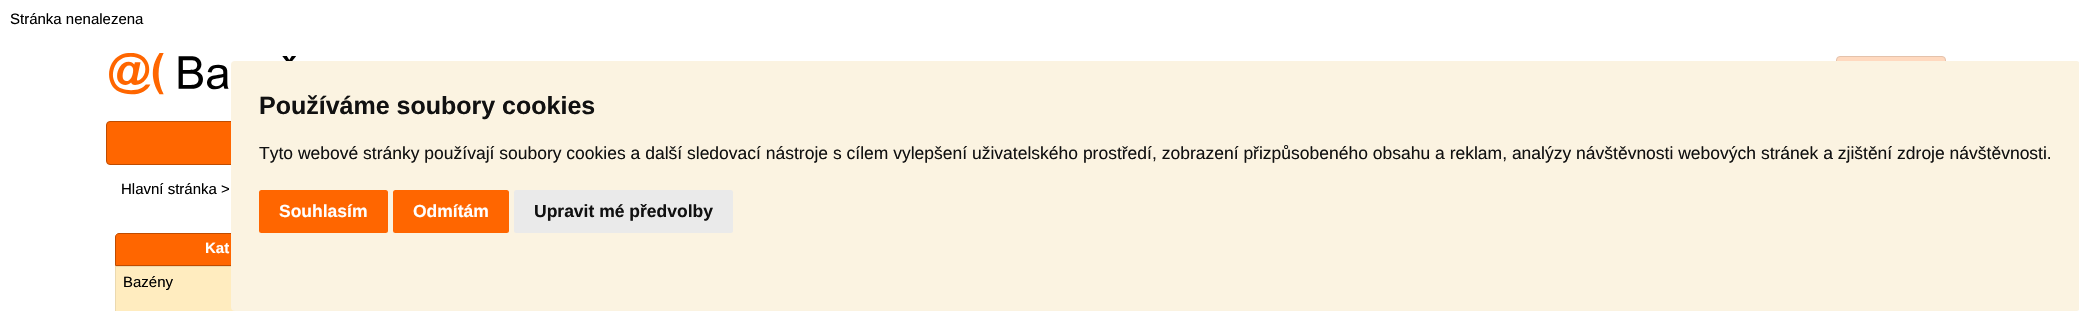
#include "include/core/SkBlurTypes.h"
#include "include/core/SkCanvas.h"
#include "include/core/SkData.h"
#include "include/core/SkFont.h"
#include "include/core/SkFontMgr.h"
#include "include/core/SkImage.h"
#include "include/core/SkMaskFilter.h"
#include "include/core/SkPaint.h"
#include "include/core/SkPathBuilder.h"
#include "include/core/SkTextBlob.h"
#include "include/effects/SkDashPathEffect.h"
#include "include/effects/SkGradientShader.h"
#include "include/utils/SkParsePath.h"

extern sk_sp<SkFontMgr> fontMgr;

void draw(SkCanvas* canvas) {
  SkPaint p;
  p.setAntiAlias(true);
  canvas->clear(SK_ColorWHITE);
  canvas->drawImageRect(SkImages::DeferredFromEncodedData(SkData::MakeFromFileName("images/1.png")), SkRect::MakeLTRB(109, 53, 354, 95), SkSamplingOptions());
  p.setColor(SkColorSetRGB(255, 217, 191));
  canvas->drawRoundRect(SkRect::MakeLTRB(1836.5f, 56.5f, 1945.5f, 88.5f), 3.5f, 3.5f, p);
  p.setStyle(SkPaint::kStroke_Style);
  p.setStrokeWidth(1);
  p.setColor(SkColorSetRGB(228, 194, 171));
  canvas->drawRoundRect(SkRect::MakeLTRB(1836.5f, 56.5f, 1945.5f, 88.5f), 3.5f, 3.5f, p);
  p.setStyle(SkPaint::kFill_Style);
  p.setColor(SkColorSetRGB(255, 102, 0));
  canvas->drawRoundRect(SkRect::MakeLTRB(106.5f, 121.5f, 1973.5f, 164.5f), 3.5f, 3.5f, p);
  p.setStyle(SkPaint::kStroke_Style);
  p.setColor(SkColorSetRGB(191, 76, 0));
  canvas->drawRoundRect(SkRect::MakeLTRB(106.5f, 121.5f, 1973.5f, 164.5f), 3.5f, 3.5f, p);
  p.setStyle(SkPaint::kFill_Style);
  p.setColor(SkColorSetRGB(255, 102, 0));
  canvas->drawPath(SkPathBuilder().moveTo(119, 233.5f).lineTo(361, 233.5f).cubicTo(363, 233.5f, 364.5f, 235, 364.5f, 237).lineTo(364.5f, 265.5f).lineTo(115.5f, 265.5f).lineTo(115.5f, 237).cubicTo(115.5f, 235, 117, 233.5f, 119, 233.5f).close().detach(), p);
  p.setStyle(SkPaint::kStroke_Style);
  p.setColor(SkColorSetRGB(191, 76, 0));
  canvas->drawPath(SkPathBuilder().moveTo(119, 233.5f).lineTo(361, 233.5f).cubicTo(363, 233.5f, 364.5f, 235, 364.5f, 237).lineTo(364.5f, 265.5f).lineTo(115.5f, 265.5f).lineTo(115.5f, 237).cubicTo(115.5f, 235, 117, 233.5f, 119, 233.5f).close().detach(), p);
  p.setStyle(SkPaint::kFill_Style);
  p.setColor(SkColorSetRGB(255, 236, 191));
  canvas->drawRect(SkRect::MakeLTRB(116, 267, 235, 311), p);
  p.setStyle(SkPaint::kStroke_Style);
  p.setColor(SkColorSetRGB(235, 217, 176));
  canvas->drawRect(SkRect::MakeLTRB(115.5f, 266.5f, 364.5f, 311.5f), p);
  p.setStyle(SkPaint::kFill_Style);
  p.setColor(SkColorSetRGB(251, 243, 225));
  canvas->drawRoundRect(SkRect::MakeLTRB(231, 61, 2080, 311), 4, 4, p);
  p.setColor(SkColorSetRGB(255, 102, 0));
  canvas->drawRoundRect(SkRect::MakeLTRB(259, 190, 388, 233), 2.5f, 2.5f, p);
  canvas->drawRoundRect(SkRect::MakeLTRB(393, 190, 509, 233), 2.5f, 2.5f, p);
  p.setColor(SkColorSetRGB(234, 234, 234));
  canvas->drawRoundRect(SkRect::MakeLTRB(514, 190, 733, 233), 2.5f, 2.5f, p);
  SkFont font1(fontMgr->matchFamilyStyle("Liberation Sans", SkFontStyle::Normal()), 15);
  font1.setSubpixel(true);
  p.setColor(SK_ColorBLACK);
  canvas->drawString("Stránka nenalezena", 10, 24, font1, p);
  SkFont font2(fontMgr->matchFamilyStyle("Liberation Sans", SkFontStyle::Bold()), 25);
  font2.setSubpixel(true);
  p.setColor(SkColorSetRGB(17, 17, 17));
  canvas->drawString("Používáme soubory cookies", 259, 114, font2, p);
  SkFont font3(fontMgr->matchFamilyStyle("Liberation Sans", SkFontStyle::Normal()), 17.5f);
  font3.setSubpixel(true);
  canvas->drawString("Tyto webové stránky používají soubory cookies a další sledovací nástroje s cílem vylepšení uživatelského prostředí, zobrazení přizpůsobeného obsahu a reklam, analýzy návštěvnosti webových stránek a zjištění zdroje návštěvnosti.", 259, 159, font3, p);
  SkFont font4(fontMgr->matchFamilyStyle("Liberation Sans", SkFontStyle::Bold()), 17.5f);
  font4.setSubpixel(true);
  p.setColor(SK_ColorWHITE);
  canvas->drawString("Souhlasím", 279, 217, font4, p);
  canvas->drawString("Odmítám", 413, 217, font4, p);
  p.setColor(SkColorSetRGB(17, 17, 17));
  canvas->drawString("Upravit mé předvolby", 534, 217, font4, p);
  p.setColor(SK_ColorBLACK);
  canvas->drawString("Hlavní stránka >", 121, 194, font1, p);
  SkFont font5(fontMgr->matchFamilyStyle("Liberation Sans", SkFontStyle::Bold()), 15);
  font5.setSubpixel(true);
  p.setColor(SK_ColorWHITE);
  canvas->drawString("Kat", 205, 253, font5, p);
  p.setColor(SK_ColorBLACK);
  canvas->drawString("Bazény", 123, 287, font1, p);
}
